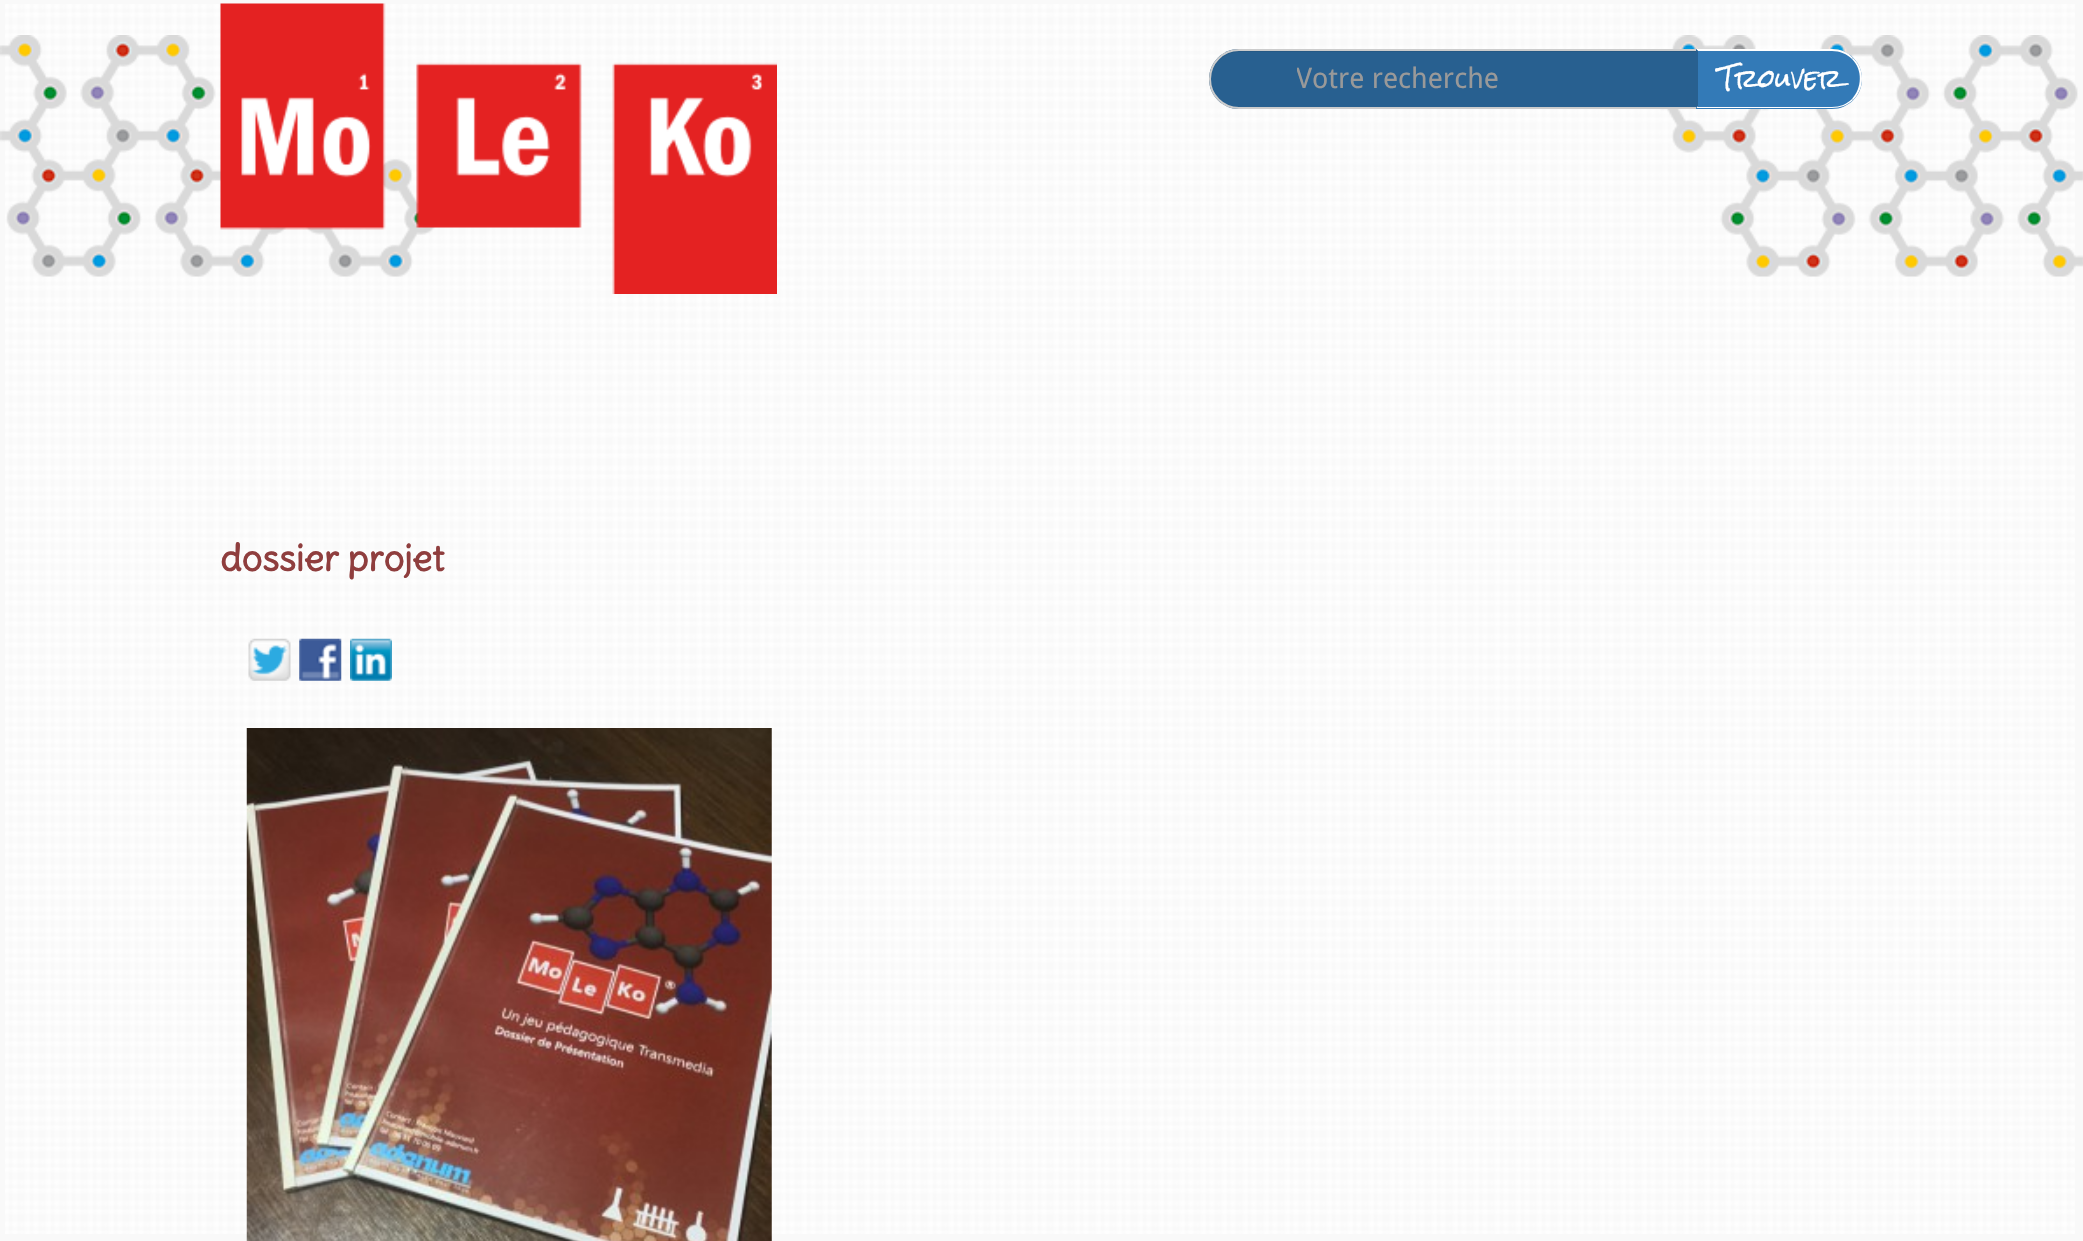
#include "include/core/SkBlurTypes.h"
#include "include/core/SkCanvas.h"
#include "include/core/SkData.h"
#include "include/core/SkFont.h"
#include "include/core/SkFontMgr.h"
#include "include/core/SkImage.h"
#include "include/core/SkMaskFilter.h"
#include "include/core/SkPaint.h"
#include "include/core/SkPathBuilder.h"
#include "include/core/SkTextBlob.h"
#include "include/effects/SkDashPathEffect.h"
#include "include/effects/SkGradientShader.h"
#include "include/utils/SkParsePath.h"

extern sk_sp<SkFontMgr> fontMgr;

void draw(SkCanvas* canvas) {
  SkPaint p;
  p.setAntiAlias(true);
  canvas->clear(SkColorSetRGB(249, 249, 249));
  canvas->drawImageRect(SkImages::DeferredFromEncodedData(SkData::MakeFromFileName("images/1.png")), SkRect::MakeLTRB(5, 4, 2075, 1234), SkSamplingOptions());
  canvas->drawImageRect(SkImages::DeferredFromEncodedData(SkData::MakeFromFileName("images/2.png")), SkRect::MakeLTRB(0, 35, 437, 277), SkSamplingOptions());
  canvas->drawImageRect(SkImages::DeferredFromEncodedData(SkData::MakeFromFileName("images/3.png")), SkRect::MakeLTRB(1660, 35, 2083, 277), SkSamplingOptions());
  canvas->drawImageRect(SkImages::DeferredFromEncodedData(SkData::MakeFromFileName("images/4.png")), SkRect::MakeLTRB(220, 3, 777, 294), SkSamplingOptions());
  p.setColor(SkColorSetRGB(40, 96, 144));
  canvas->drawPath(SkPathBuilder().moveTo(1239, 49).lineTo(1698, 49).lineTo(1698, 109).lineTo(1239, 109).cubicTo(1222.5f, 109, 1209, 95.5f, 1209, 79).cubicTo(1209, 62.5f, 1222.5f, 49, 1239, 49).close().detach(), p);
  p.setColor(SkColorSetRGB(37, 89, 133));
  canvas->drawPath(SkPathBuilder().moveTo(1239, 52).lineTo(1696, 52).lineTo(1696, 51).lineTo(1239, 51).cubicTo(1224, 51, 1211, 64, 1211, 80).cubicTo(1211, 65, 1224, 52, 1239, 52).close().detach(), p);
  p.setStyle(SkPaint::kStroke_Style);
  p.setStrokeWidth(2);
  p.setColor(SkColorSetRGB(204, 204, 204));
  canvas->drawPath(SkPathBuilder().moveTo(1239, 50).lineTo(1697, 50).lineTo(1697, 108).lineTo(1239, 108).cubicTo(1223, 108, 1210, 95, 1210, 79).cubicTo(1210, 63, 1223, 50, 1239, 50).close().detach(), p);
  p.setStyle(SkPaint::kFill_Style);
  p.setColor(SkColorSetRGB(51, 122, 183));
  canvas->drawPath(SkPathBuilder().moveTo(1696, 49).lineTo(1832, 49).cubicTo(1848.5f, 49, 1862, 62.5f, 1862, 79).cubicTo(1862, 95.5f, 1848.5f, 109, 1832, 109).lineTo(1696, 109).close().detach(), p);
  p.setColor(SK_ColorWHITE);
  canvas->drawPath(SkPathBuilder().moveTo(1696, 49).lineTo(1698, 51).lineTo(1832, 51).cubicTo(1840, 51, 1847, 54, 1852, 59).lineTo(1853, 58).cubicTo(1848, 52, 1840, 49, 1832, 49).close().detach(), p);
  canvas->drawPath(SkPathBuilder().moveTo(1853, 58).cubicTo(1865, 69, 1865, 88, 1853, 100).lineTo(1852, 99).cubicTo(1862, 88, 1863, 70, 1852, 59).close().detach(), p);
  canvas->drawPath(SkPathBuilder().moveTo(1853, 100).cubicTo(1848, 105, 1840, 108, 1832, 108).lineTo(1696, 108).lineTo(1698, 106).lineTo(1698, 107).lineTo(1832, 107).cubicTo(1840, 107, 1847, 104, 1852, 99).close().detach(), p);
  p.setColor(SkColorSetRGB(40, 96, 144));
  canvas->drawPath(SkPathBuilder().moveTo(1696, 49).lineTo(1696, 108).lineTo(1698, 106).lineTo(1698, 51).close().detach(), p);
  canvas->drawImageRect(SkImages::DeferredFromEncodedData(SkData::MakeFromFileName("images/5.png")), SkRect::MakeLTRB(248, 638, 291, 681), SkSamplingOptions());
  canvas->drawImageRect(SkImages::DeferredFromEncodedData(SkData::MakeFromFileName("images/6.png")), SkRect::MakeLTRB(299, 638, 342, 681), SkSamplingOptions());
  canvas->drawImageRect(SkImages::DeferredFromEncodedData(SkData::MakeFromFileName("images/7.png")), SkRect::MakeLTRB(350, 638, 392, 681), SkSamplingOptions());
  canvas->drawImageRect(SkImages::DeferredFromEncodedData(SkData::MakeFromFileName("images/8.png")), SkRect::MakeLTRB(246, 728, 772, 1241), SkSamplingOptions());
  canvas->save();
  canvas->clipRect(SkRect::MakeLTRB(1297, 63, 1675, 96));
  SkFont font1(fontMgr->matchFamilyStyle("Droid Sans", SkFontStyle::Normal()), 28.25f);
  font1.setSubpixel(true);
  p.setColor(SkColorSetRGB(153, 153, 153));
  canvas->drawString("Votre recherche", 1296, 88, font1, p);
  canvas->restore();
  SkFont font2(fontMgr->matchFamilyStyle("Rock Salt", SkFontStyle::Normal()), 24.5f);
  font2.setSubpixel(true);
  p.setColor(SK_ColorWHITE);
  canvas->drawString("Trouver", 1719, 88, font2, p);
  SkFont font3(fontMgr->matchFamilyStyle("Delius", SkFontStyle::Bold()), 36.75f);
  font3.setSubpixel(true);
  p.setColor(SkColorSetRGB(143, 62, 62));
  canvas->drawString("dossier projet", 220, 571, font3, p);
}
